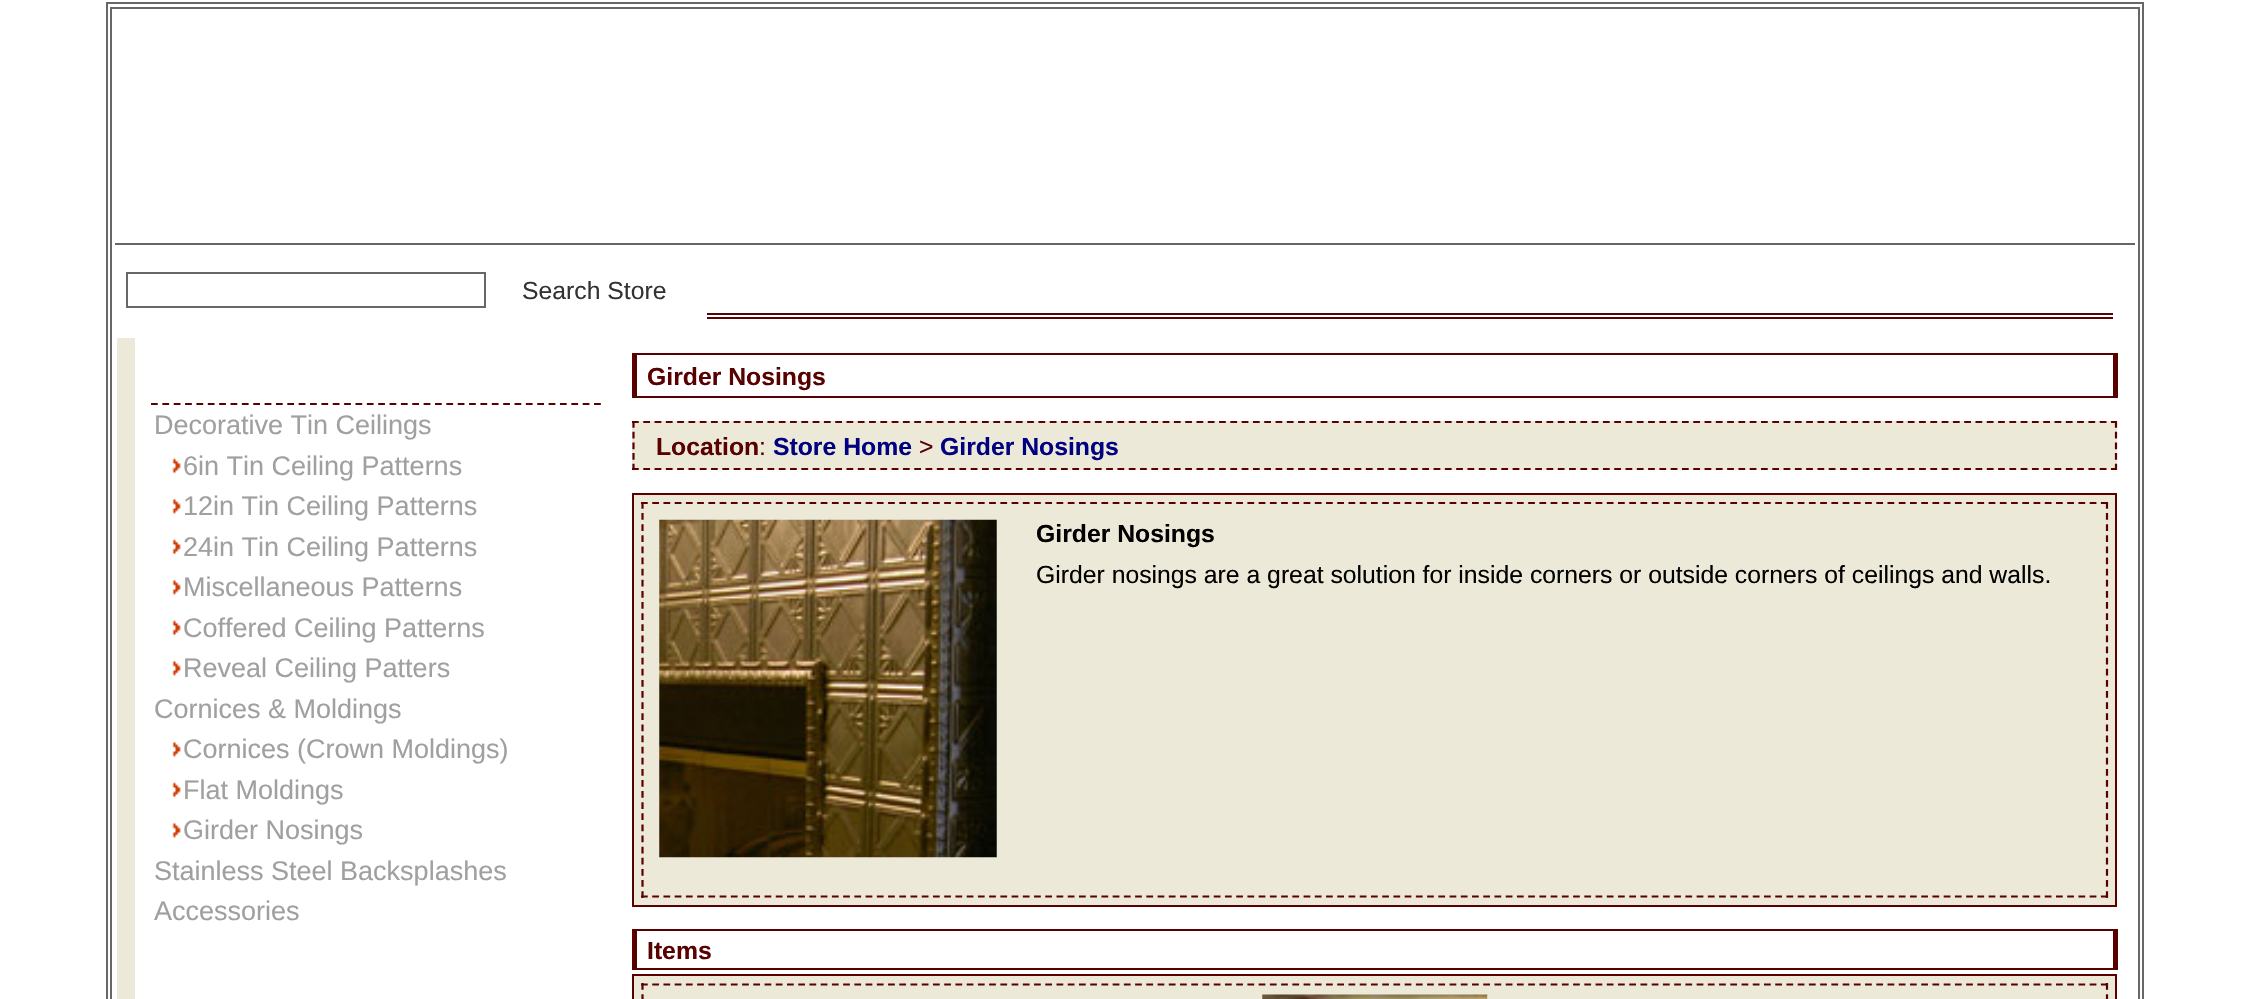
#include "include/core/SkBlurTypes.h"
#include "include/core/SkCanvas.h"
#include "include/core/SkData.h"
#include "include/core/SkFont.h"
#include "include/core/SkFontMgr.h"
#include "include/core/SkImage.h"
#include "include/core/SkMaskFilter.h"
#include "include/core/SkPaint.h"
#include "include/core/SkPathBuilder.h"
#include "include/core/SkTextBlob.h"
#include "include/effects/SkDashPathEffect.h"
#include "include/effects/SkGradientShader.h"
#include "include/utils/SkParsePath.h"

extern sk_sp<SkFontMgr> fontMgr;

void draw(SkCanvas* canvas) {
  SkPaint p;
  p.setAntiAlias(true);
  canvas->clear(SK_ColorWHITE);
  p.setStyle(SkPaint::kStroke_Style);
  p.setStrokeWidth(2);
  p.setColor(SkColorSetRGB(103, 103, 103));
  canvas->drawRect(SkRect::MakeLTRB(107, 3, 2143, 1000), p);
  canvas->drawRect(SkRect::MakeLTRB(111, 8, 2139, 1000), p);
  p.setStyle(SkPaint::kFill_Style);
  canvas->drawRect(SkRect::MakeLTRB(115, 243, 2135, 245), p);
  p.setStyle(SkPaint::kStroke_Style);
  canvas->drawRect(SkRect::MakeLTRB(127, 273, 485, 307), p);
  p.setStyle(SkPaint::kFill_Style);
  p.setColor(SkColorSetRGB(89, 0, 0));
  canvas->drawRect(SkRect::MakeLTRB(707, 313, 2113, 315), p);
  canvas->drawRect(SkRect::MakeLTRB(707, 317, 2113, 319), p);
  p.setColor(SkColorSetRGB(236, 233, 216));
  canvas->drawRect(SkRect::MakeLTRB(117, 338, 135, 999), p);
  p.setStyle(SkPaint::kStroke_Style);
  p.setStrokeWidth(2.2f);
  p.setColor(SkColorSetRGB(89, 0, 0));
  p.setPathEffect(SkDashPathEffect::Make({{6.75f, 4.61f}}, 0));
  canvas->drawPath(SkPathBuilder().moveTo(151, 404).lineTo(601, 404).detach(), p);
  p.setPathEffect(nullptr);
  canvas->drawImageRect(SkImages::DeferredFromEncodedData(SkData::MakeFromFileName("images/1.png")), SkRect::MakeLTRB(172, 458, 181, 474), SkSamplingOptions());
  canvas->drawImageRect(SkImages::DeferredFromEncodedData(SkData::MakeFromFileName("images/2.png")), SkRect::MakeLTRB(172, 499, 181, 514), SkSamplingOptions());
  canvas->drawImageRect(SkImages::DeferredFromEncodedData(SkData::MakeFromFileName("images/1.png")), SkRect::MakeLTRB(172, 539, 181, 555), SkSamplingOptions());
  canvas->drawImageRect(SkImages::DeferredFromEncodedData(SkData::MakeFromFileName("images/3.png")), SkRect::MakeLTRB(172, 580, 181, 595), SkSamplingOptions());
  canvas->drawImageRect(SkImages::DeferredFromEncodedData(SkData::MakeFromFileName("images/1.png")), SkRect::MakeLTRB(172, 620, 181, 636), SkSamplingOptions());
  canvas->drawImageRect(SkImages::DeferredFromEncodedData(SkData::MakeFromFileName("images/2.png")), SkRect::MakeLTRB(172, 661, 181, 676), SkSamplingOptions());
  canvas->drawImageRect(SkImages::DeferredFromEncodedData(SkData::MakeFromFileName("images/2.png")), SkRect::MakeLTRB(172, 742, 181, 757), SkSamplingOptions());
  canvas->drawImageRect(SkImages::DeferredFromEncodedData(SkData::MakeFromFileName("images/1.png")), SkRect::MakeLTRB(172, 782, 181, 798), SkSamplingOptions());
  canvas->drawImageRect(SkImages::DeferredFromEncodedData(SkData::MakeFromFileName("images/2.png")), SkRect::MakeLTRB(172, 823, 181, 838), SkSamplingOptions());
  p.setStyle(SkPaint::kFill_Style);
  canvas->drawRect(SkRect::MakeLTRB(632, 353, 2117, 355), p);
  canvas->drawRect(SkRect::MakeLTRB(2113, 353, 2118, 398), p);
  canvas->drawRect(SkRect::MakeLTRB(632, 396, 2117, 398), p);
  canvas->drawRect(SkRect::MakeLTRB(632, 353, 637, 398), p);
  p.setColor(SkColorSetRGB(236, 233, 216));
  canvas->drawRect(SkRect::MakeLTRB(632, 421, 2117, 470), p);
  p.setStyle(SkPaint::kStroke_Style);
  p.setColor(SkColorSetRGB(89, 0, 0));
  p.setPathEffect(SkDashPathEffect::Make({{6.75f, 4.54f}}, 0));
  canvas->drawPath(SkPathBuilder().moveTo(632, 422).lineTo(2117, 422).detach(), p);
  p.setPathEffect(nullptr);
  p.setPathEffect(SkDashPathEffect::Make({{6.75f, 3.94f}}, 0));
  canvas->drawPath(SkPathBuilder().moveTo(2116, 421).lineTo(2116, 470).detach(), p);
  p.setPathEffect(nullptr);
  p.setPathEffect(SkDashPathEffect::Make({{6.75f, 4.54f}}, 0));
  canvas->drawPath(SkPathBuilder().moveTo(632, 469).lineTo(2117, 469).detach(), p);
  p.setPathEffect(nullptr);
  p.setPathEffect(SkDashPathEffect::Make({{6.75f, 3.94f}}, 0));
  canvas->drawPath(SkPathBuilder().moveTo(633.5f, 421).lineTo(633.5f, 470).detach(), p);
  p.setPathEffect(nullptr);
  p.setStyle(SkPaint::kFill_Style);
  p.setColor(SkColorSetRGB(236, 233, 216));
  canvas->drawRect(SkRect::MakeLTRB(633, 494, 2116, 906), p);
  p.setStyle(SkPaint::kStroke_Style);
  p.setStrokeWidth(2);
  p.setColor(SkColorSetRGB(89, 0, 0));
  canvas->drawRect(SkRect::MakeLTRB(633, 494, 2116, 906), p);
  p.setStrokeWidth(2.2f);
  p.setPathEffect(SkDashPathEffect::Make({{6.75f, 4.48f}}, 0));
  canvas->drawPath(SkPathBuilder().moveTo(641, 503).lineTo(2108, 503).detach(), p);
  p.setPathEffect(nullptr);
  p.setPathEffect(SkDashPathEffect::Make({{6.75f, 4.37f}}, 0));
  canvas->drawPath(SkPathBuilder().moveTo(2107, 502).lineTo(2107, 898).detach(), p);
  p.setPathEffect(nullptr);
  p.setPathEffect(SkDashPathEffect::Make({{6.75f, 4.48f}}, 0));
  canvas->drawPath(SkPathBuilder().moveTo(641, 896.5f).lineTo(2108, 896.5f).detach(), p);
  p.setPathEffect(nullptr);
  p.setPathEffect(SkDashPathEffect::Make({{6.75f, 4.37f}}, 0));
  canvas->drawPath(SkPathBuilder().moveTo(642.5f, 502).lineTo(642.5f, 898).detach(), p);
  p.setPathEffect(nullptr);
  canvas->drawImageRect(SkImages::DeferredFromEncodedData(SkData::MakeFromFileName("images/4.png")), SkRect::MakeLTRB(659, 519, 997, 858), SkSamplingOptions());
  p.setStyle(SkPaint::kFill_Style);
  canvas->drawRect(SkRect::MakeLTRB(632, 929, 2117, 931), p);
  canvas->drawRect(SkRect::MakeLTRB(2113, 929, 2118, 970), p);
  canvas->drawRect(SkRect::MakeLTRB(632, 968, 2117, 970), p);
  canvas->drawRect(SkRect::MakeLTRB(632, 929, 637, 970), p);
  p.setColor(SkColorSetRGB(236, 233, 216));
  canvas->drawRect(SkRect::MakeLTRB(633, 975, 2116, 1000), p);
  p.setStyle(SkPaint::kStroke_Style);
  p.setStrokeWidth(2);
  p.setColor(SkColorSetRGB(89, 0, 0));
  canvas->drawRect(SkRect::MakeLTRB(633, 975, 2116, 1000), p);
  p.setStrokeWidth(2.2f);
  p.setPathEffect(SkDashPathEffect::Make({{6.75f, 4.48f}}, 0));
  canvas->drawPath(SkPathBuilder().moveTo(641, 984.5f).lineTo(2108, 984.5f).detach(), p);
  p.setPathEffect(nullptr);
  p.setPathEffect(SkDashPathEffect::Make({{6.75f, 4.59f}}, 0));
  canvas->drawPath(SkPathBuilder().moveTo(2107, 983).lineTo(2107, 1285).detach(), p);
  p.setPathEffect(nullptr);
  p.setPathEffect(SkDashPathEffect::Make({{6.75f, 4.59f}}, 0));
  canvas->drawPath(SkPathBuilder().moveTo(642.5f, 983).lineTo(642.5f, 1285).detach(), p);
  p.setPathEffect(nullptr);
  canvas->drawImageRect(SkImages::DeferredFromEncodedData(SkData::MakeFromFileName("images/5.png")), SkRect::MakeLTRB(1262, 994, 1488, 999), SkSamplingOptions());
  SkFont font1(fontMgr->matchFamilyStyle("Liberation Sans", SkFontStyle::Normal()), 24.75f);
  font1.setSubpixel(true);
  p.setStyle(SkPaint::kFill_Style);
  p.setColor(SkColorSetRGB(51, 51, 51));
  canvas->drawString("Search Store", 522, 299, font1, p);
  SkFont font2(fontMgr->matchFamilyStyle("Liberation Sans", SkFontStyle::Normal()), 27);
  font2.setSubpixel(true);
  p.setColor(SkColorSetRGB(160, 160, 160));
  canvas->drawString("Decorative Tin Ceilings", 154, 434, font2, p);
  canvas->drawString("6in Tin Ceiling Patterns", 183, 475, font2, p);
  canvas->drawString("12in Tin Ceiling Patterns", 183, 515, font2, p);
  canvas->drawString("24in Tin Ceiling Patterns", 183, 556, font2, p);
  canvas->drawString("Miscellaneous Patterns", 183, 596, font2, p);
  canvas->drawString("Coffered Ceiling Patterns", 183, 637, font2, p);
  canvas->drawString("Reveal Ceiling Patters", 183, 677, font2, p);
  canvas->drawString("Cornices & Moldings", 154, 718, font2, p);
  canvas->drawString("Cornices (Crown Moldings)", 183, 758, font2, p);
  canvas->drawString("Flat Moldings", 183, 799, font2, p);
  canvas->drawString("Girder Nosings", 183, 839, font2, p);
  canvas->drawString("Stainless Steel Backsplashes", 154, 880, font2, p);
  canvas->drawString("Accessories", 154, 920, font2, p);
  SkFont font3(fontMgr->matchFamilyStyle("Liberation Sans", SkFontStyle::Bold()), 24.75f);
  font3.setSubpixel(true);
  p.setColor(SkColorSetRGB(89, 0, 0));
  canvas->drawString("Girder Nosings", 647, 385, font3, p);
  canvas->drawString("Location", 656, 455, font3, p);
  canvas->drawString(":", 759, 455, font1, p);
  p.setColor(SkColorSetRGB(0, 0, 128));
  canvas->drawString("Store Home", 773, 455, font3, p);
  p.setColor(SkColorSetRGB(89, 0, 0));
  canvas->drawString(">", 919, 455, font1, p);
  p.setColor(SkColorSetRGB(0, 0, 128));
  canvas->drawString("Girder Nosings", 940, 455, font3, p);
  p.setColor(SK_ColorBLACK);
  canvas->drawString("Girder Nosings", 1036, 542, font3, p);
  canvas->drawString("Girder nosings are a great solution for inside corners or outside corners of ceilings and walls.", 1036, 583, font1, p);
  p.setColor(SkColorSetRGB(89, 0, 0));
  canvas->drawString("Items", 647, 959, font3, p);
}
